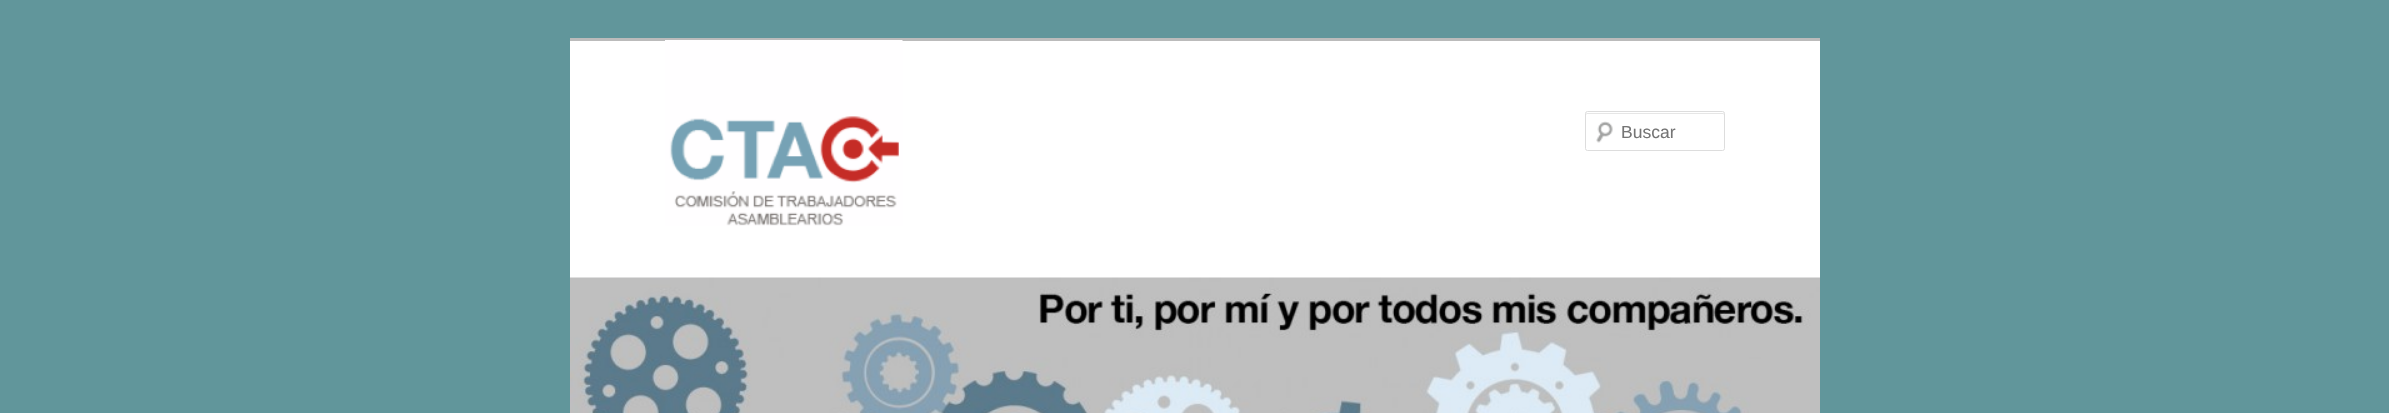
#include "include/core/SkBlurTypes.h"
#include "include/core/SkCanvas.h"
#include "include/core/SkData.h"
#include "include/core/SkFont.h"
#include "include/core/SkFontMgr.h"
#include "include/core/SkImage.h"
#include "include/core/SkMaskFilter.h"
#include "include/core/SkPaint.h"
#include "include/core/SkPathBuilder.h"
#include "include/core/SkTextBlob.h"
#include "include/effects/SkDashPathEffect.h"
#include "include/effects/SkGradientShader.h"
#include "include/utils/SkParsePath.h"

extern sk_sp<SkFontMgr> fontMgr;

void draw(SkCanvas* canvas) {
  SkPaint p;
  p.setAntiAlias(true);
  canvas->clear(SkColorSetRGB(97, 150, 155));
  p.setColor(SK_ColorWHITE);
  canvas->drawRect(SkRect::MakeLTRB(570, 41, 1820, 278), p);
  p.setColor(SkColorSetRGB(187, 187, 187));
  canvas->drawRect(SkRect::MakeLTRB(570, 38, 1820, 41), p);
  canvas->drawImageRect(SkImages::DeferredFromEncodedData(SkData::MakeFromFileName("images/1.png")), SkRect::MakeLTRB(665, 40, 903, 226), SkSamplingOptions());
  canvas->drawImageRect(SkImages::DeferredFromEncodedData(SkData::MakeFromFileName("images/2.png")), SkRect::MakeLTRB(1596, 121, 1613, 143), SkSamplingOptions());
  p.setColor(SkColorSetRGB(230, 230, 230));
  canvas->drawPath(SkPathBuilder().moveTo(1588, 114).lineTo(1722, 114).cubicTo(1723, 114, 1724, 114, 1724, 115).cubicTo(1724, 114, 1724, 113, 1723, 113).lineTo(1587, 113).cubicTo(1586, 113, 1586, 114, 1586, 115).cubicTo(1586, 114, 1587, 114, 1588, 114).close().detach(), p);
  p.setStyle(SkPaint::kStroke_Style);
  p.setStrokeWidth(1);
  p.setColor(SkColorSetRGB(221, 221, 221));
  canvas->drawRoundRect(SkRect::MakeLTRB(1585.5f, 111.5f, 1724.5f, 150.5f), 2, 2, p);
  canvas->drawImageRect(SkImages::DeferredFromEncodedData(SkData::MakeFromFileName("images/3.png")), SkRect::MakeLTRB(570, 277, 1820, 413), SkSamplingOptions());
  SkFont font1(fontMgr->matchFamilyStyle("Liberation Sans", SkFontStyle::Normal()), 17.5f);
  font1.setSubpixel(true);
  p.setStyle(SkPaint::kFill_Style);
  p.setColor(SkColorSetRGB(117, 117, 117));
  canvas->drawString("Buscar", 1621, 138, font1, p);
}
